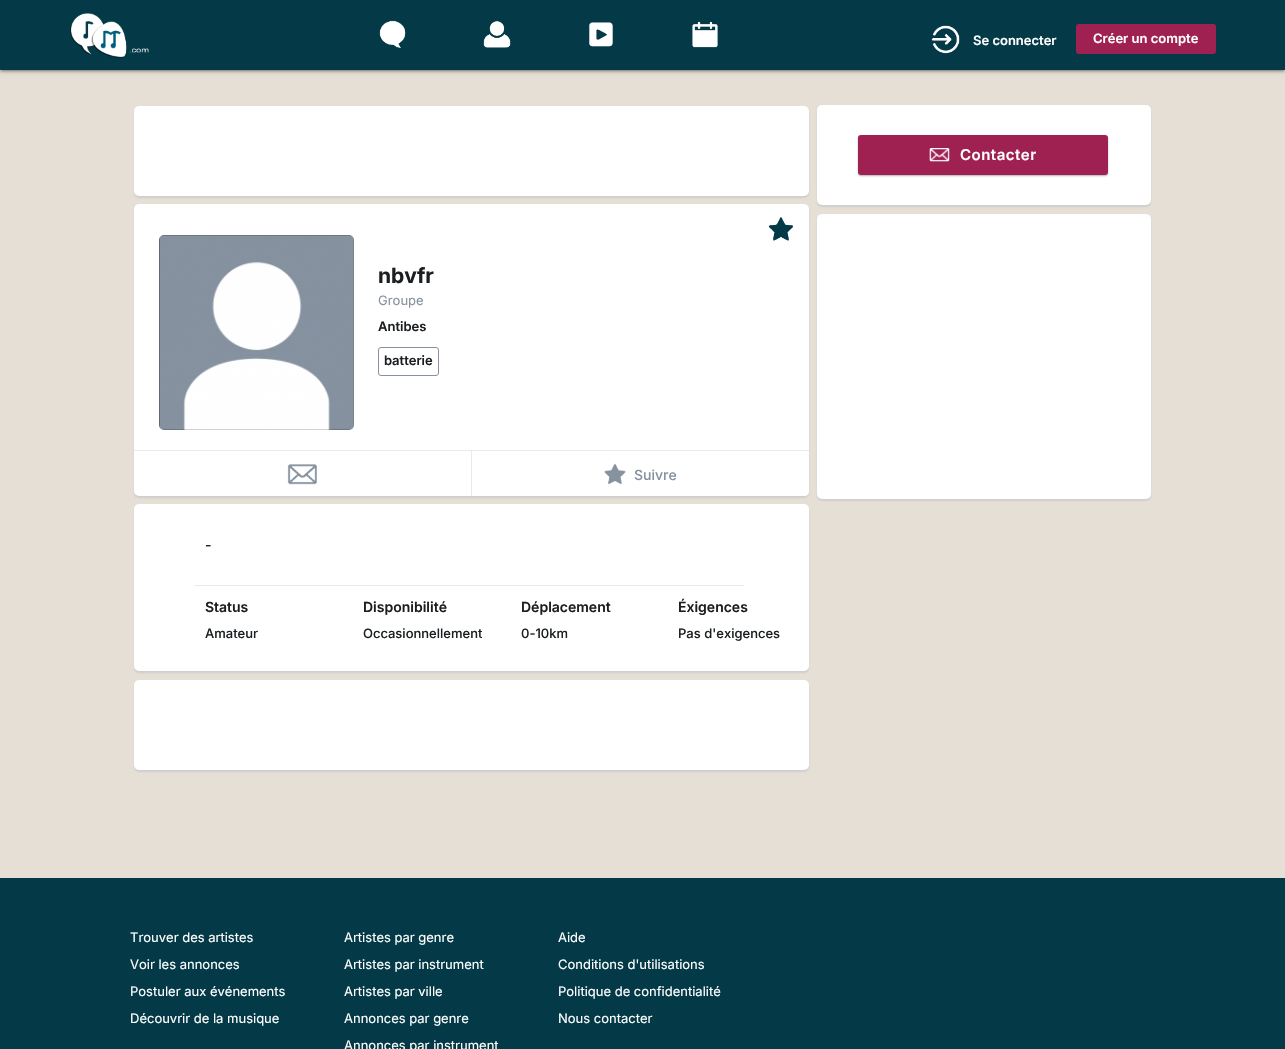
#include "include/core/SkBlurTypes.h"
#include "include/core/SkCanvas.h"
#include "include/core/SkData.h"
#include "include/core/SkFont.h"
#include "include/core/SkFontMgr.h"
#include "include/core/SkImage.h"
#include "include/core/SkMaskFilter.h"
#include "include/core/SkPaint.h"
#include "include/core/SkPathBuilder.h"
#include "include/core/SkTextBlob.h"
#include "include/effects/SkDashPathEffect.h"
#include "include/effects/SkGradientShader.h"
#include "include/utils/SkParsePath.h"

extern sk_sp<SkFontMgr> fontMgr;

void draw(SkCanvas* canvas) {
  SkPaint p;
  p.setAntiAlias(true);
  auto spacedText = [&](const char* s, float x, float y, const SkFont& font, const SkPaint& ink, float letter, float word) {
    std::vector<SkGlyphID> glyphs(font.countText(s, strlen(s), SkTextEncoding::kUTF8));
    std::vector<float> xs(glyphs.size());
    font.textToGlyphs(s, strlen(s), SkTextEncoding::kUTF8, glyphs);
    font.getXPos(glyphs, xs, x);
    float extra = 0;
    for (size_t i = 0; i < glyphs.size(); i++) {
      xs[i] += extra;
      extra += letter + word * (glyphs[i] == font.unicharToGlyph(' '));
    }
    canvas->drawTextBlob(SkTextBlob::MakeFromPosHGlyphs(glyphs, xs, y, font), 0, 0, ink);
  };
  canvas->clear(SkColorSetRGB(230, 223, 214));
  p.setColor(SkColorSetARGB(51, 0, 0, 0));
  p.setMaskFilter(SkMaskFilter::MakeBlur(kNormal_SkBlurStyle, 2.5f));
  canvas->drawRect(SkRect::MakeLTRB(0, 1, 1285, 71), p);
  p.setMaskFilter(nullptr);
  p.setColor(SkColorSetARGB(31, 0, 0, 0));
  p.setMaskFilter(SkMaskFilter::MakeBlur(kNormal_SkBlurStyle, 0.5f));
  canvas->drawRect(SkRect::MakeLTRB(2, 5, 1283, 71), p);
  p.setMaskFilter(nullptr);
  p.setColor(SkColorSetARGB(36, 0, 0, 0));
  p.setMaskFilter(SkMaskFilter::MakeBlur(kNormal_SkBlurStyle, 1));
  canvas->drawRect(SkRect::MakeLTRB(0, 2, 1285, 72), p);
  p.setMaskFilter(nullptr);
  p.setColor(SkColorSetRGB(4, 58, 71));
  canvas->drawRect(SkRect::MakeLTRB(0, 0, 1285, 70), p);
  canvas->drawImageRect(SkImages::DeferredFromEncodedData(SkData::MakeFromFileName("images/1.png")), SkRect::MakeLTRB(70, 13, 149, 58), SkSamplingOptions());
  canvas->drawImageRect(SkImages::DeferredFromEncodedData(SkData::MakeFromFileName("images/2.png")), SkRect::MakeLTRB(379, 20, 406, 48), SkSamplingOptions());
  canvas->drawImageRect(SkImages::DeferredFromEncodedData(SkData::MakeFromFileName("images/3.png")), SkRect::MakeLTRB(483, 21, 511, 48), SkSamplingOptions());
  canvas->drawImageRect(SkImages::DeferredFromEncodedData(SkData::MakeFromFileName("images/4.png")), SkRect::MakeLTRB(589, 22, 613, 47), SkSamplingOptions());
  canvas->drawImageRect(SkImages::DeferredFromEncodedData(SkData::MakeFromFileName("images/5.png")), SkRect::MakeLTRB(692, 21, 718, 48), SkSamplingOptions());
  canvas->drawImageRect(SkImages::DeferredFromEncodedData(SkData::MakeFromFileName("images/6.png")), SkRect::MakeLTRB(931, 25, 960, 54), SkSamplingOptions());
  p.setColor(SkColorSetRGB(158, 33, 81));
  canvas->drawRoundRect(SkRect::MakeLTRB(1076, 24, 1216, 54), 3, 3, p);
  p.setColor(SkColorSetRGB(206, 206, 206));
  p.setMaskFilter(SkMaskFilter::MakeBlur(kNormal_SkBlurStyle, 1));
  canvas->drawRoundRect(SkRect::MakeLTRB(817, 107, 1151, 207), 5, 5, p);
  p.setMaskFilter(nullptr);
  p.setColor(SK_ColorWHITE);
  canvas->drawRoundRect(SkRect::MakeLTRB(817, 105, 1151, 205), 5, 5, p);
  p.setColor(SkColorSetARGB(179, 134, 146, 160));
  p.setMaskFilter(SkMaskFilter::MakeBlur(kNormal_SkBlurStyle, 1));
  canvas->drawRoundRect(SkRect::MakeLTRB(858, 136, 1108, 176), 3, 3, p);
  p.setMaskFilter(nullptr);
  p.setColor(SkColorSetRGB(158, 33, 81));
  canvas->drawRoundRect(SkRect::MakeLTRB(858, 135, 1108, 175), 3, 3, p);
  canvas->drawImageRect(SkImages::DeferredFromEncodedData(SkData::MakeFromFileName("images/7.png")), SkRect::MakeLTRB(929, 148, 950, 162), SkSamplingOptions());
  p.setColor(SkColorSetRGB(206, 206, 206));
  p.setMaskFilter(SkMaskFilter::MakeBlur(kNormal_SkBlurStyle, 1));
  canvas->drawRoundRect(SkRect::MakeLTRB(817, 216, 1151, 501), 5, 5, p);
  p.setMaskFilter(nullptr);
  p.setColor(SK_ColorWHITE);
  canvas->drawRoundRect(SkRect::MakeLTRB(817, 214, 1151, 499), 5, 5, p);
  p.setColor(SkColorSetRGB(206, 206, 206));
  p.setMaskFilter(SkMaskFilter::MakeBlur(kNormal_SkBlurStyle, 1));
  canvas->drawRoundRect(SkRect::MakeLTRB(134, 108, 809, 198), 5, 5, p);
  p.setMaskFilter(nullptr);
  p.setColor(SK_ColorWHITE);
  canvas->drawRoundRect(SkRect::MakeLTRB(134, 106, 809, 196), 5, 5, p);
  p.setColor(SkColorSetRGB(206, 206, 206));
  p.setMaskFilter(SkMaskFilter::MakeBlur(kNormal_SkBlurStyle, 1));
  canvas->drawRoundRect(SkRect::MakeLTRB(134, 206, 809, 498), 5, 5, p);
  p.setMaskFilter(nullptr);
  p.setColor(SK_ColorWHITE);
  canvas->drawRoundRect(SkRect::MakeLTRB(134, 204, 809, 496), 5, 5, p);
  canvas->drawImageRect(SkImages::DeferredFromEncodedData(SkData::MakeFromFileName("images/8.png")), SkRect::MakeLTRB(768, 217, 793, 241), SkSamplingOptions());
  canvas->drawImageRect(SkImages::DeferredFromEncodedData(SkData::MakeFromFileName("images/9.png")), SkRect::MakeLTRB(159, 235, 354, 430), SkSamplingOptions());
  p.setStyle(SkPaint::kStroke_Style);
  p.setStrokeWidth(1);
  p.setColor(SkColorSetRGB(134, 146, 160));
  canvas->drawRoundRect(SkRect::MakeLTRB(378.5f, 347.5f, 438.5f, 375.5f), 2.5f, 2.5f, p);
  p.setStyle(SkPaint::kFill_Style);
  p.setColor(SkColorSetRGB(234, 234, 234));
  canvas->drawRect(SkRect::MakeLTRB(134, 450, 809, 451), p);
  canvas->drawRect(SkRect::MakeLTRB(471, 451, 472, 496), p);
  canvas->drawImageRect(SkImages::DeferredFromEncodedData(SkData::MakeFromFileName("images/10.png")), SkRect::MakeLTRB(287, 464, 317, 485), SkSamplingOptions());
  p.setColor(SK_ColorWHITE);
  canvas->drawPath(SkPathBuilder().moveTo(472, 451).lineTo(809, 451).lineTo(809, 491).cubicTo(809, 494, 807, 496, 804, 496).lineTo(472, 496).close().detach(), p);
  canvas->drawImageRect(SkImages::DeferredFromEncodedData(SkData::MakeFromFileName("images/11.png")), SkRect::MakeLTRB(604, 463, 626, 485), SkSamplingOptions());
  p.setColor(SkColorSetRGB(206, 206, 206));
  p.setMaskFilter(SkMaskFilter::MakeBlur(kNormal_SkBlurStyle, 1));
  canvas->drawRoundRect(SkRect::MakeLTRB(134, 506, 809, 673), 5, 5, p);
  p.setMaskFilter(nullptr);
  p.setColor(SK_ColorWHITE);
  canvas->drawRoundRect(SkRect::MakeLTRB(134, 504, 809, 671), 5, 5, p);
  p.setColor(SkColorSetRGB(234, 234, 234));
  canvas->drawRect(SkRect::MakeLTRB(194, 585, 744, 586), p);
  p.setColor(SkColorSetRGB(206, 206, 206));
  p.setMaskFilter(SkMaskFilter::MakeBlur(kNormal_SkBlurStyle, 1));
  canvas->drawRoundRect(SkRect::MakeLTRB(134, 682, 809, 772), 5, 5, p);
  p.setMaskFilter(nullptr);
  p.setColor(SK_ColorWHITE);
  canvas->drawRoundRect(SkRect::MakeLTRB(134, 680, 809, 770), 5, 5, p);
  p.setColor(SkColorSetRGB(4, 58, 71));
  canvas->drawRect(SkRect::MakeLTRB(0, 878, 1285, 1049), p);
  SkFont font1(fontMgr->matchFamilyStyle("Inter", SkFontStyle(600, SkFontStyle::kNormal_Width, SkFontStyle::kUpright_Slant)), 13);
  font1.setSubpixel(true);
  p.setColor(SK_ColorWHITE);
  canvas->drawString("Se connecter", 973, 45, font1, p);
  canvas->drawString("Créer un compte", 1093, 43, font1, p);
  SkFont font2(fontMgr->matchFamilyStyle("Inter", SkFontStyle(600, SkFontStyle::kNormal_Width, SkFontStyle::kUpright_Slant)), 15);
  font2.setSubpixel(true);
  spacedText("Contacter", 960, 160, font2, p, 0.5f, 0);
  SkFont font3(fontMgr->matchFamilyStyle("Inter", SkFontStyle::Bold()), 21);
  font3.setSubpixel(true);
  p.setColor(SkColorSetRGB(27, 31, 33));
  canvas->drawString("nbvfr", 378, 283, font3, p);
  SkFont font4(fontMgr->matchFamilyStyle("Inter", SkFontStyle::Normal()), 13);
  font4.setSubpixel(true);
  p.setColor(SkColorSetRGB(134, 146, 160));
  canvas->drawString("Groupe", 378, 305, font4, p);
  p.setColor(SkColorSetRGB(27, 31, 33));
  canvas->drawString("Antibes", 378, 331, font1, p);
  canvas->drawString("batterie", 384, 365, font1, p);
  SkFont font5(fontMgr->matchFamilyStyle("Inter", SkFontStyle(500, SkFontStyle::kNormal_Width, SkFontStyle::kUpright_Slant)), 14);
  font5.setSubpixel(true);
  p.setColor(SkColorSetRGB(134, 146, 160));
  canvas->drawString("Suivre", 634, 480, font5, p);
  p.setColor(SkColorSetRGB(27, 31, 33));
  canvas->drawString("-", 205, 550, font5, p);
  SkFont font6(fontMgr->matchFamilyStyle("Inter", SkFontStyle(600, SkFontStyle::kNormal_Width, SkFontStyle::kUpright_Slant)), 14);
  font6.setSubpixel(true);
  canvas->drawString("Status", 205, 612, font6, p);
  SkFont font7(fontMgr->matchFamilyStyle("Inter", SkFontStyle(500, SkFontStyle::kNormal_Width, SkFontStyle::kUpright_Slant)), 13);
  font7.setSubpixel(true);
  canvas->drawString("Amateur", 205, 638, font7, p);
  canvas->drawString("Disponibilité", 363, 612, font6, p);
  canvas->drawString("Occasionnellement", 363, 638, font7, p);
  canvas->drawString("Déplacement", 521, 612, font6, p);
  canvas->drawString("0-10km", 521, 638, font7, p);
  canvas->drawString("Éxigences", 678, 612, font6, p);
  canvas->drawString("Pas d'exigences", 678, 638, font7, p);
  p.setColor(SK_ColorWHITE);
  canvas->drawString("Trouver des artistes", 130, 942, font4, p);
  canvas->drawString("Voir les annonces", 130, 969, font4, p);
  canvas->drawString("Postuler aux événements", 130, 996, font4, p);
  canvas->drawString("Découvrir de la musique", 130, 1023, font4, p);
  canvas->drawString("Artistes par genre", 344, 942, font4, p);
  canvas->drawString("Artistes par instrument", 344, 969, font4, p);
  canvas->drawString("Artistes par ville", 344, 996, font4, p);
  canvas->drawString("Annonces par genre", 344, 1023, font4, p);
  canvas->drawString("Annonces par instrument", 344, 1050, font4, p);
  canvas->drawString("Aide", 558, 942, font4, p);
  canvas->drawString("Conditions d'utilisations", 558, 969, font4, p);
  canvas->drawString("Politique de confidentialité", 558, 996, font4, p);
  canvas->drawString("Nous contacter", 558, 1023, font4, p);
}
